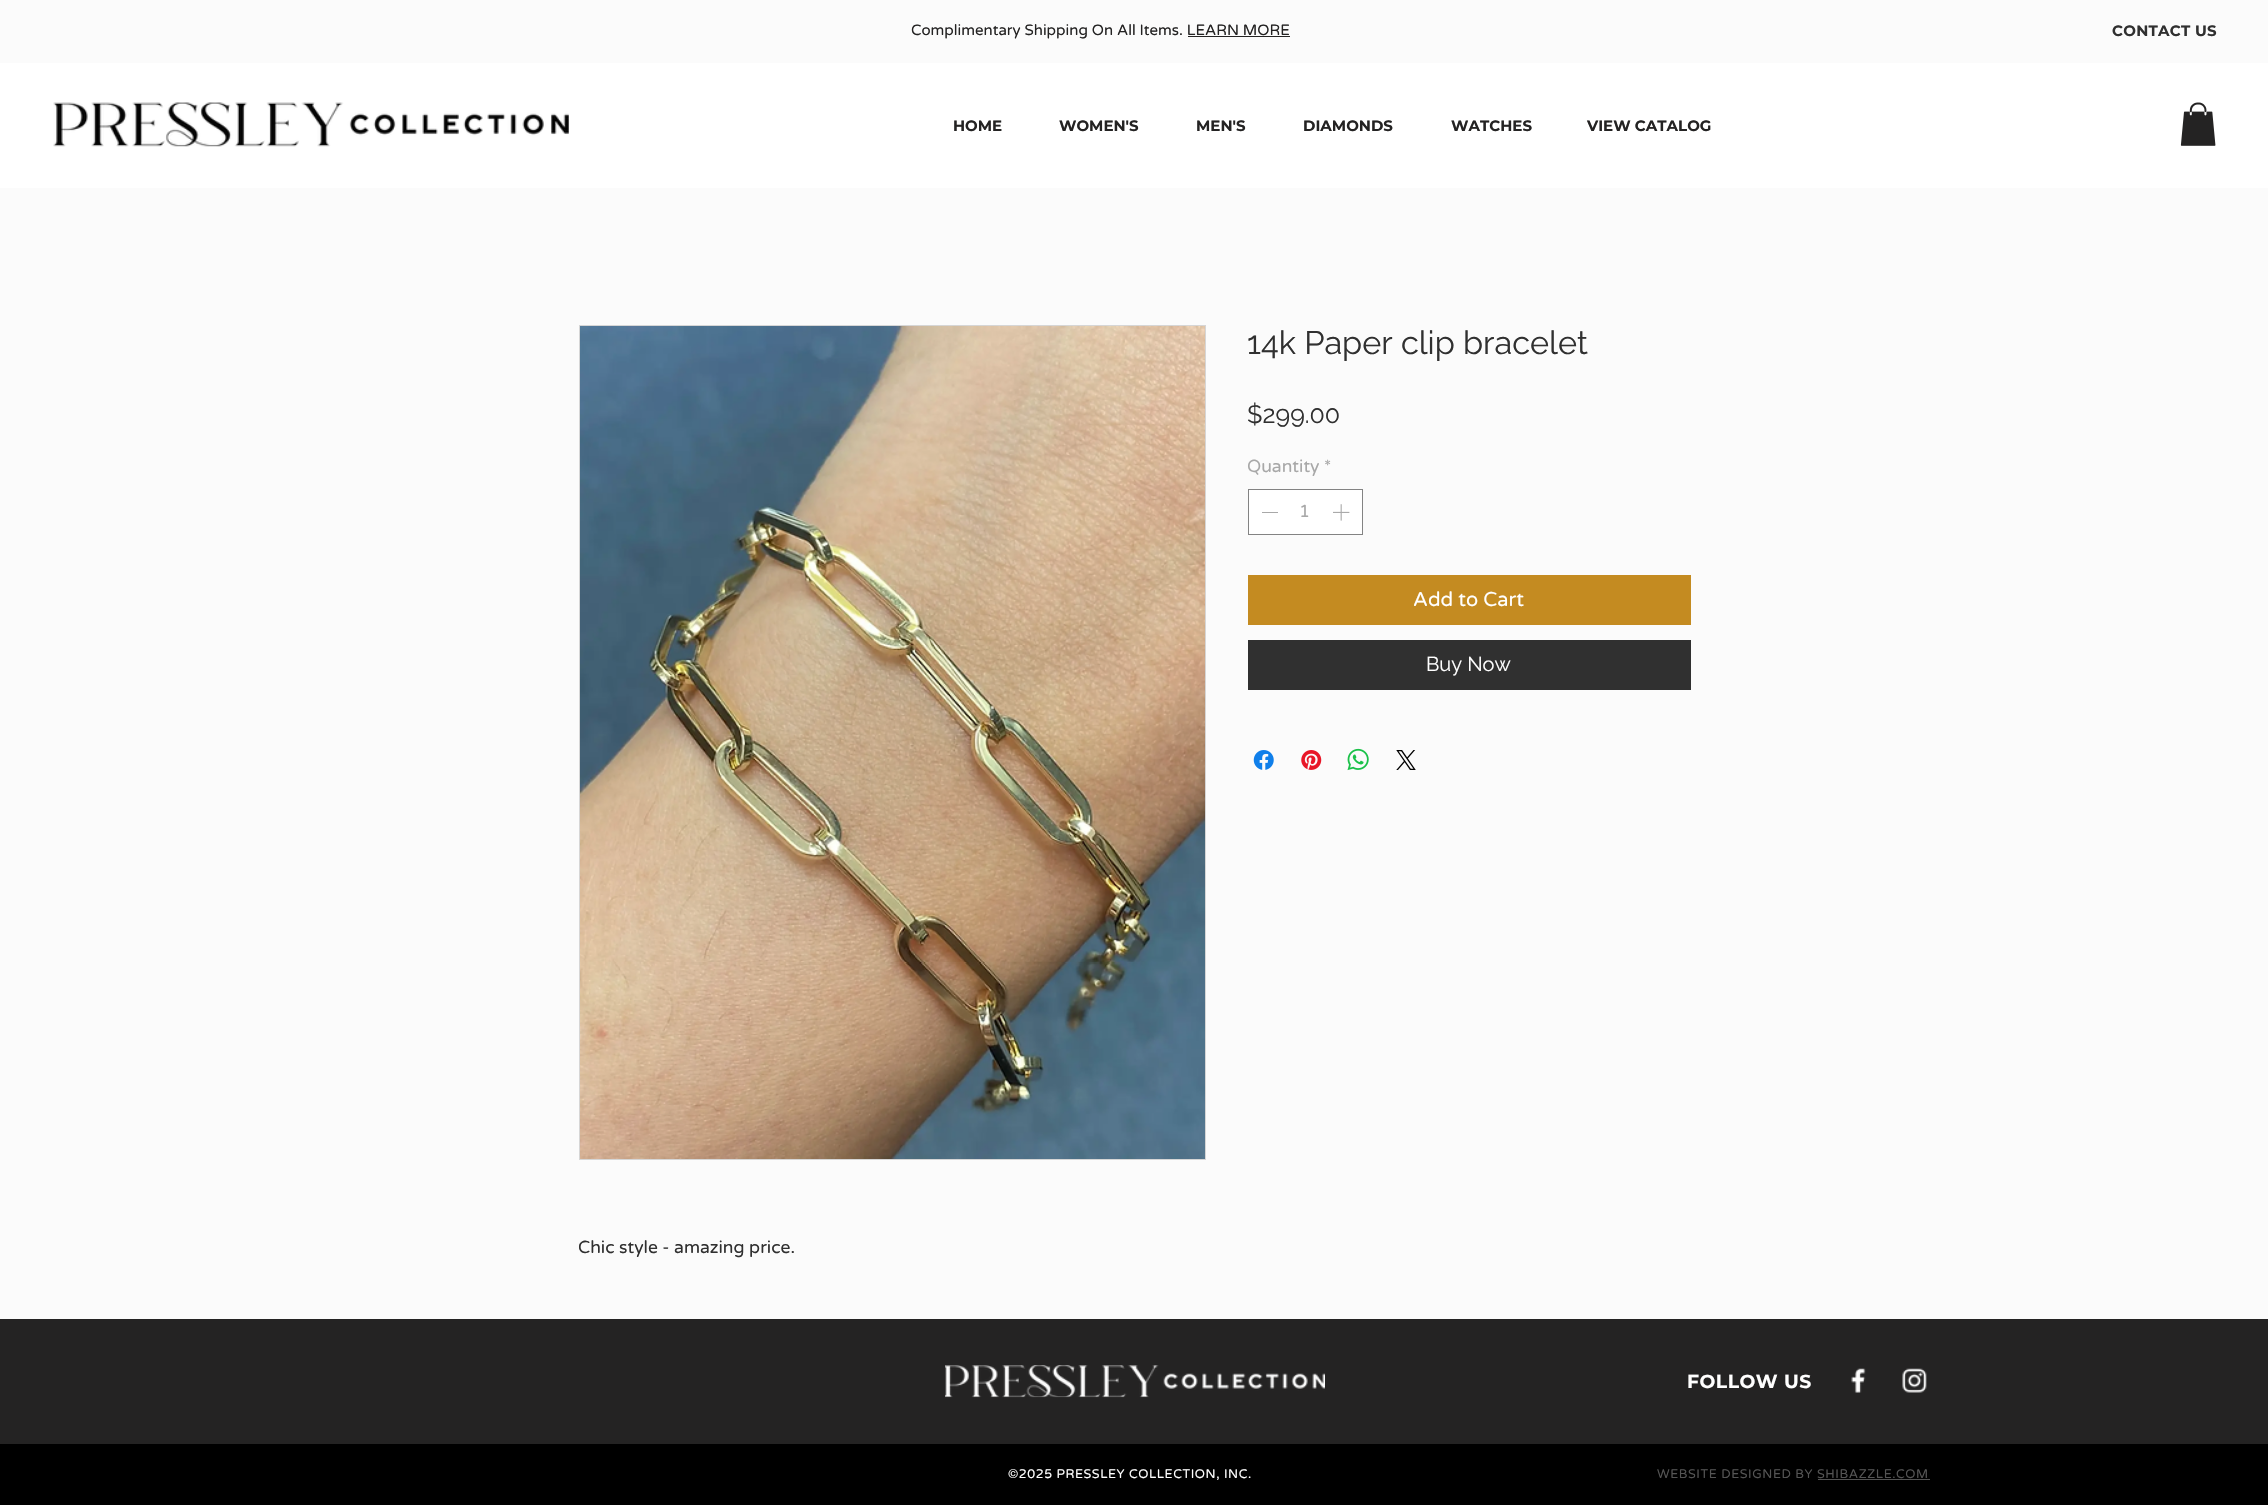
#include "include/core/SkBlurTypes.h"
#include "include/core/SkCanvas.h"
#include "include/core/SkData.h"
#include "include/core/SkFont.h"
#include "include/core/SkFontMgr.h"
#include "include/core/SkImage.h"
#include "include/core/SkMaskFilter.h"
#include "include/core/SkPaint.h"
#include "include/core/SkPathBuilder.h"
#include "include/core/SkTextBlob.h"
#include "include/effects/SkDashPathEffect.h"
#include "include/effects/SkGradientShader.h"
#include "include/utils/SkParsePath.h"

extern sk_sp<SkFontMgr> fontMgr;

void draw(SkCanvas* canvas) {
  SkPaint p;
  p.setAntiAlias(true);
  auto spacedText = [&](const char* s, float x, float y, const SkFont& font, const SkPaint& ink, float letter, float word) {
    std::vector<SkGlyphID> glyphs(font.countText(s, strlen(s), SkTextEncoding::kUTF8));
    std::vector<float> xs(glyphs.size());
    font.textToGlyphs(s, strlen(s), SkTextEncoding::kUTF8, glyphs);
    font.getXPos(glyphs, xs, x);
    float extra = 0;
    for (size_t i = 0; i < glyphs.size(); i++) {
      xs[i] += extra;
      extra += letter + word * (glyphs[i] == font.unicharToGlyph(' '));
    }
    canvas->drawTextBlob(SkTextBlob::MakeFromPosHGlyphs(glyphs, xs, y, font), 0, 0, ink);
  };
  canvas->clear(SkColorSetRGB(251, 251, 251));
  p.setColor(SkColorSetRGB(36, 35, 35));
  canvas->drawRect(SkRect::MakeLTRB(1188, 36, 1290, 37), p);
  p.setColor(SK_ColorWHITE);
  canvas->drawRect(SkRect::MakeLTRB(0, 63, 2268, 188), p);
  canvas->drawImageRect(SkImages::DeferredFromEncodedData(SkData::MakeFromFileName("images/1.png")), SkRect::MakeLTRB(2180, 102, 2216, 146), SkSamplingOptions());
  canvas->drawImageRect(SkImages::DeferredFromEncodedData(SkData::MakeFromFileName("images/2.png")), SkRect::MakeLTRB(53, 102, 569, 147), SkSamplingOptions());
  canvas->drawRect(SkRect::MakeLTRB(1248.5f, 489.5f, 1362.5f, 534.5f), p);
  p.setStyle(SkPaint::kStroke_Style);
  p.setStrokeWidth(1);
  p.setColor(SkColorSetRGB(131, 131, 131));
  canvas->drawRect(SkRect::MakeLTRB(1248.5f, 489.5f, 1362.5f, 534.5f), p);
  p.setStyle(SkPaint::kFill_Style);
  p.setColor(SkColorSetRGB(168, 168, 168));
  canvas->drawRect(SkRect::MakeLTRB(1262, 512, 1278, 513), p);
  canvas->drawImageRect(SkImages::DeferredFromEncodedData(SkData::MakeFromFileName("images/3.png")), SkRect::MakeLTRB(1333, 504, 1350, 521), SkSamplingOptions());
  p.setColor(SkColorSetRGB(196, 139, 33));
  canvas->drawRect(SkRect::MakeLTRB(1248, 575, 1691, 625), p);
  p.setColor(SkColorSetRGB(48, 48, 48));
  canvas->drawRect(SkRect::MakeLTRB(1248, 640, 1691, 690), p);
  canvas->drawImageRect(SkImages::DeferredFromEncodedData(SkData::MakeFromFileName("images/4.png")), SkRect::MakeLTRB(1253, 750, 1274, 770), SkSamplingOptions());
  canvas->drawImageRect(SkImages::DeferredFromEncodedData(SkData::MakeFromFileName("images/5.png")), SkRect::MakeLTRB(1301, 750, 1322, 770), SkSamplingOptions());
  canvas->drawImageRect(SkImages::DeferredFromEncodedData(SkData::MakeFromFileName("images/6.png")), SkRect::MakeLTRB(1347, 748, 1369, 771), SkSamplingOptions());
  canvas->drawImageRect(SkImages::DeferredFromEncodedData(SkData::MakeFromFileName("images/7.png")), SkRect::MakeLTRB(1396, 750, 1416, 770), SkSamplingOptions());
  p.setStyle(SkPaint::kStroke_Style);
  p.setColor(SkColorSetRGB(214, 214, 214));
  canvas->drawRect(SkRect::MakeLTRB(579.5f, 325.5f, 1205.5f, 1159.5f), p);
  canvas->drawImageRect(SkImages::DeferredFromEncodedData(SkData::MakeFromFileName("images/8.png")), SkRect::MakeLTRB(580, 326, 1205, 1159), SkSamplingOptions());
  p.setStyle(SkPaint::kFill_Style);
  p.setColor(SkColorSetRGB(36, 35, 35));
  canvas->drawRect(SkRect::MakeLTRB(0, 1319, 2268, 1444), p);
  canvas->drawImageRect(SkImages::DeferredFromEncodedData(SkData::MakeFromFileName("images/9.png")), SkRect::MakeLTRB(945, 1365, 1325, 1398), SkSamplingOptions());
  canvas->drawImageRect(SkImages::DeferredFromEncodedData(SkData::MakeFromFileName("images/10.png")), SkRect::MakeLTRB(1851, 1368, 1866, 1393), SkSamplingOptions());
  canvas->drawImageRect(SkImages::DeferredFromEncodedData(SkData::MakeFromFileName("images/11.png")), SkRect::MakeLTRB(1902, 1368, 1927, 1393), SkSamplingOptions());
  p.setColor(SK_ColorBLACK);
  canvas->drawRect(SkRect::MakeLTRB(0, 1444, 2268, 1505), p);
  p.setColor(SkColorSetRGB(84, 84, 84));
  canvas->drawRect(SkRect::MakeLTRB(1818, 1479, 1930, 1480), p);
  SkFont font1(fontMgr->matchFamilyStyle("Varela Round", SkFontStyle::Normal()), 15);
  font1.setSubpixel(true);
  p.setColor(SkColorSetRGB(36, 35, 35));
  canvas->drawString("Complimentary Shipping On All Items. LEARN MORE", 911, 35, font1, p);
  SkFont font2(fontMgr->matchFamilyStyle("Montserrat", SkFontStyle::Bold()), 15);
  font2.setSubpixel(true);
  canvas->drawString("HOME", 953, 131, font2, p);
  canvas->drawString("WOMEN'S", 1059, 131, font2, p);
  canvas->drawString("MEN'S", 1196, 131, font2, p);
  canvas->drawString("DIAMONDS", 1303, 131, font2, p);
  canvas->drawString("WATCHES", 1451, 131, font2, p);
  canvas->drawString("VIEW CATALOG", 1587, 131, font2, p);
  p.setColor(SkColorSetRGB(48, 48, 48));
  spacedText("CONTACT US", 2112, 36, font2, p, 0.25f, 0);
  SkFont font3(fontMgr->matchFamilyStyle("Raleway", SkFontStyle::Normal()), 32.5f);
  font3.setSubpixel(true);
  canvas->drawString("14k Paper clip bracelet", 1247, 354, font3, p);
  SkFont font4(fontMgr->matchFamilyStyle("Raleway", SkFontStyle::Normal()), 25);
  font4.setSubpixel(true);
  canvas->drawString("$299.00", 1247, 423, font4, p);
  SkFont font5(fontMgr->matchFamilyStyle("Varela Round", SkFontStyle::Normal()), 17.5f);
  font5.setSubpixel(true);
  p.setColor(SkColorSetRGB(168, 168, 168));
  canvas->drawString("Quantity", 1247, 472, font5, p);
  canvas->drawString("*", 1324, 472, font5, p);
  canvas->drawString("1", 1299, 517, font5, p);
  SkFont font6(fontMgr->matchFamilyStyle("Varela Round", SkFontStyle::Normal()), 20);
  font6.setSubpixel(true);
  p.setColor(SK_ColorWHITE);
  canvas->drawString("Add to Cart", 1413, 606, font6, p);
  SkFont font7(fontMgr->matchFamilyStyle("Raleway", SkFontStyle::Normal()), 20);
  font7.setSubpixel(true);
  canvas->drawString("Buy Now", 1426, 671, font7, p);
  p.setColor(SkColorSetRGB(48, 48, 48));
  canvas->drawString("Chic style - amazing price.", 578, 1253, font5, p);
  SkFont font8(fontMgr->matchFamilyStyle("Montserrat", SkFontStyle::Bold()), 18.75f);
  font8.setSubpixel(true);
  p.setColor(SK_ColorWHITE);
  spacedText("FOLLOW US", 1687, 1388, font8, p, 0.5f, 0);
  SkFont font9(fontMgr->matchFamilyStyle("Varela Round", SkFontStyle::Normal()), 12.5f);
  font9.setSubpixel(true);
  spacedText("©2025 PRESSLEY COLLECTION, INC.", 1008, 1478, font9, p, 0.6f, 0);
  p.setColor(SkColorSetRGB(84, 84, 84));
  spacedText("WEBSITE DESIGNED BY SHIBAZZLE.COM", 1657, 1478, font9, p, 0.6f, 0);
}
